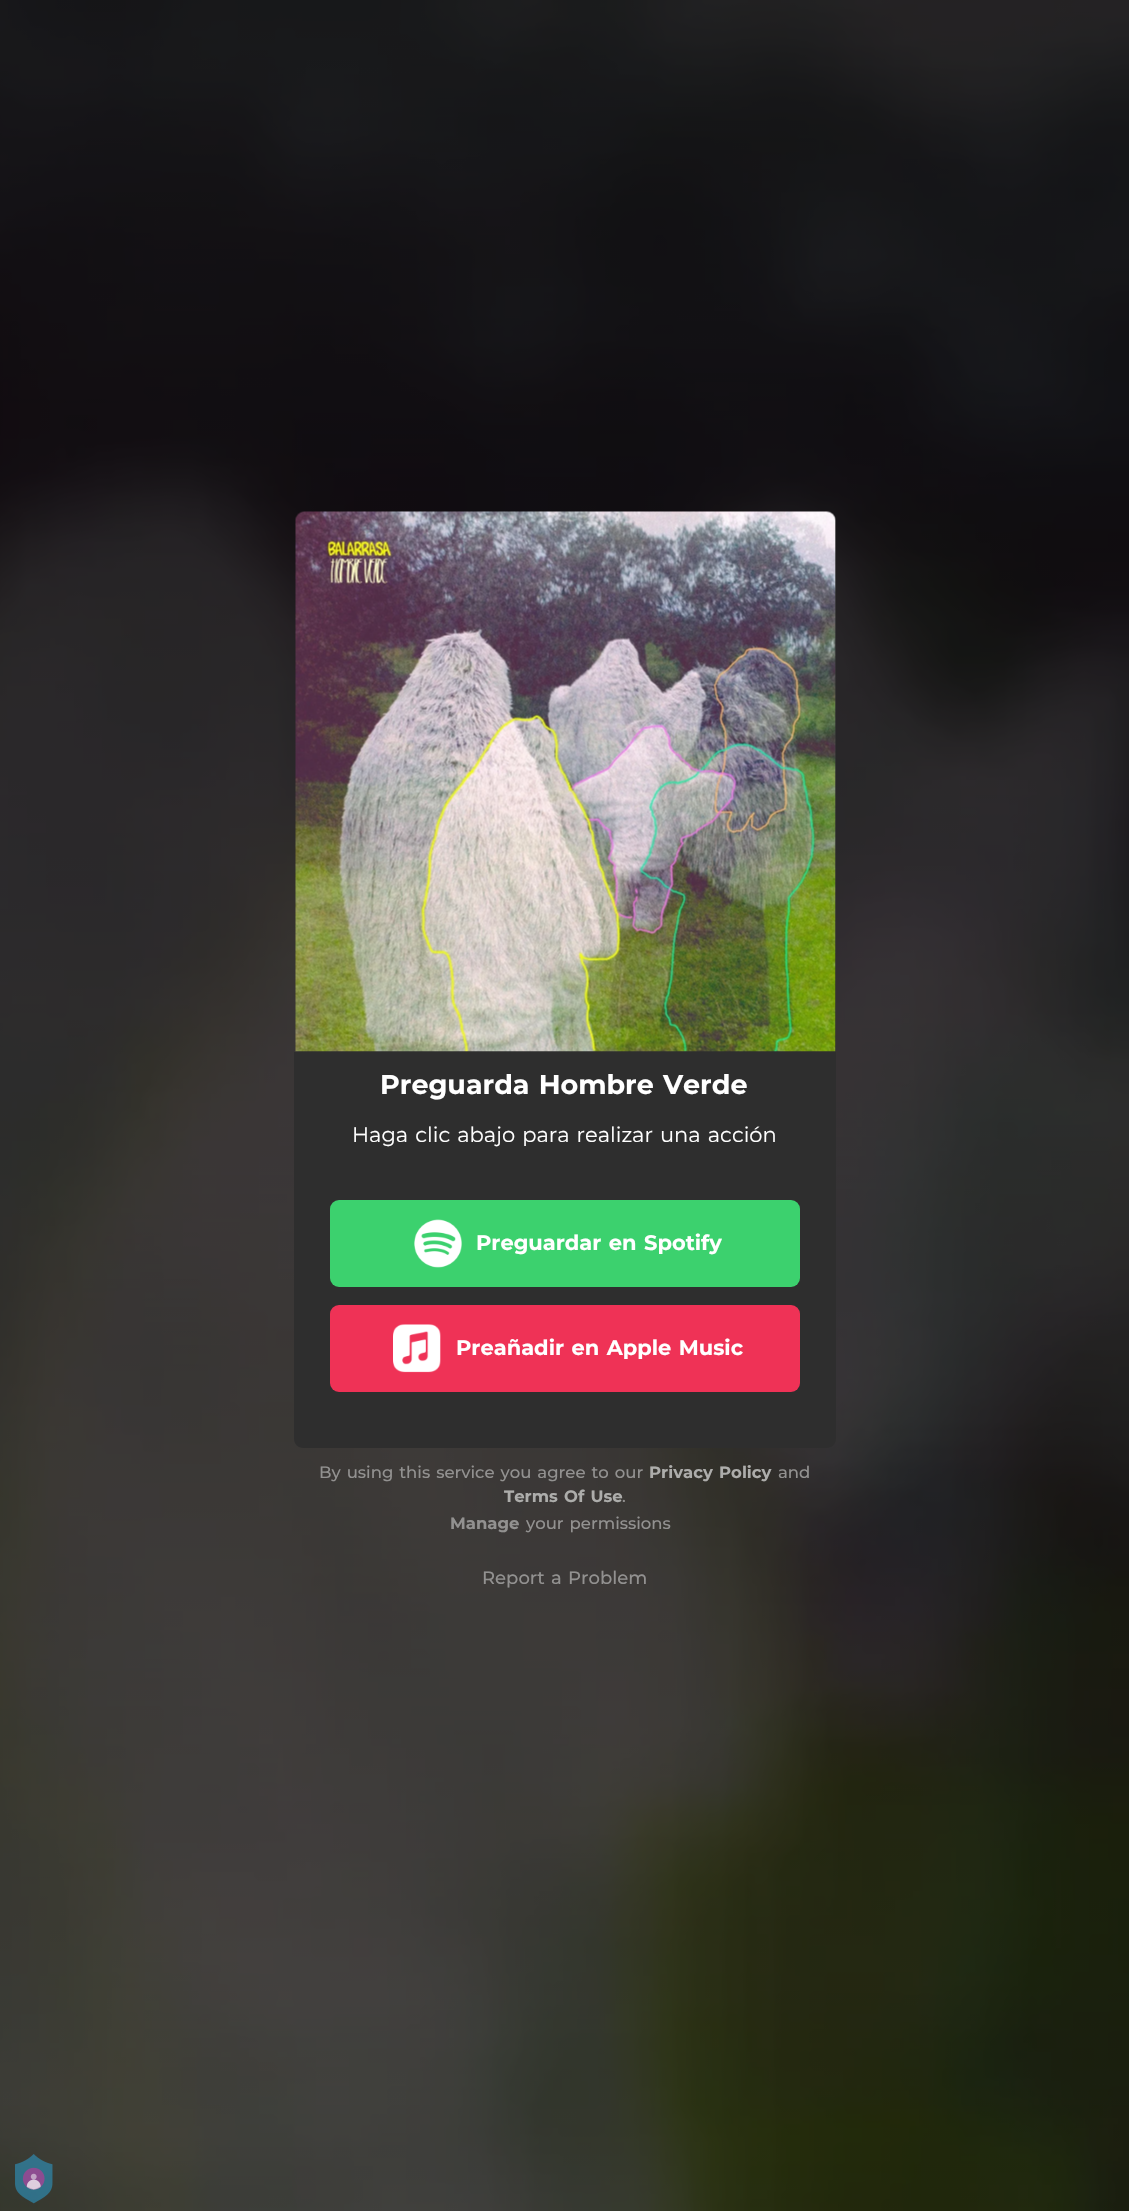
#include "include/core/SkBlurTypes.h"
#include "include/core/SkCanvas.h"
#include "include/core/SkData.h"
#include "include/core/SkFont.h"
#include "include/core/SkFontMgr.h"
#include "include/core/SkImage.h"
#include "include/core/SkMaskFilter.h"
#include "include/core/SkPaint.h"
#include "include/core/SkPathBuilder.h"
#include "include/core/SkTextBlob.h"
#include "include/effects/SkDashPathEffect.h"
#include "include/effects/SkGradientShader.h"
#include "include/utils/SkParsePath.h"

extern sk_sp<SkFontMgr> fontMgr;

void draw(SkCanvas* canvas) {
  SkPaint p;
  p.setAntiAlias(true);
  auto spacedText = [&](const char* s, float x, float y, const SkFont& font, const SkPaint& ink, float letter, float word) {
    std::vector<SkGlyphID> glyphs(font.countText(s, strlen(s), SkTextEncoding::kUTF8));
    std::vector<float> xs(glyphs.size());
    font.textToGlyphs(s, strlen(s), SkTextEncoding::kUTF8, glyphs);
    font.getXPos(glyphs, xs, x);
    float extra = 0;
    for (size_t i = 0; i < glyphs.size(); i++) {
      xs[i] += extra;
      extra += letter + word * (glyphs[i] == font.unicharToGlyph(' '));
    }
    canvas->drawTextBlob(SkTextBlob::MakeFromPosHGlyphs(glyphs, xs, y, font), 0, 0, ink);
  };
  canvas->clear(SK_ColorWHITE);
  canvas->drawImageRect(SkImages::DeferredFromEncodedData(SkData::MakeFromFileName("images/1.png")), SkRect::MakeLTRB(0, 0, 1129, 2211), SkSamplingOptions());
  p.setColor(SkColorSetRGB(47, 47, 47));
  canvas->drawPath(SkPathBuilder().moveTo(305, 512).lineTo(827, 512).cubicTo(832, 512, 836, 516, 836, 521).lineTo(836, 1052).lineTo(296, 1052).lineTo(296, 521).cubicTo(296, 516, 300, 512, 305, 512).close().detach(), p);
  canvas->drawImageRect(SkImages::DeferredFromEncodedData(SkData::MakeFromFileName("images/2.png")), SkRect::MakeLTRB(295, 511, 836, 1052), SkSamplingOptions());
  p.setColor(SkColorSetRGB(46, 46, 46));
  canvas->drawPath(SkPathBuilder().moveTo(294, 1052).lineTo(836, 1052).lineTo(836, 1439).cubicTo(836, 1444, 832, 1448, 827, 1448).lineTo(303, 1448).cubicTo(298, 1448, 294, 1444, 294, 1439).close().detach(), p);
  p.setColor(SkColorSetRGB(60, 209, 110));
  canvas->drawRoundRect(SkRect::MakeLTRB(330, 1200, 800, 1287), 9, 9, p);
  canvas->drawImageRect(SkImages::DeferredFromEncodedData(SkData::MakeFromFileName("images/3.png")), SkRect::MakeLTRB(414, 1219, 462, 1268), SkSamplingOptions());
  p.setColor(SkColorSetRGB(239, 50, 86));
  canvas->drawRoundRect(SkRect::MakeLTRB(330, 1305, 800, 1392), 9, 9, p);
  canvas->drawImageRect(SkImages::DeferredFromEncodedData(SkData::MakeFromFileName("images/4.png")), SkRect::MakeLTRB(393, 1324, 441, 1373), SkSamplingOptions());
  canvas->drawImageRect(SkImages::DeferredFromEncodedData(SkData::MakeFromFileName("images/5.png")), SkRect::MakeLTRB(15, 2154, 53, 2204), SkSamplingOptions());
  SkFont font1(fontMgr->matchFamilyStyle("Montserrat", SkFontStyle::Bold()), 27);
  font1.setSubpixel(true);
  p.setColor(SK_ColorWHITE);
  spacedText("Preguarda Hombre Verde", 380, 1094, font1, p, 0, 1.5f);
  SkFont font2(fontMgr->matchFamilyStyle("Montserrat", SkFontStyle::Normal()), 21);
  font2.setSubpixel(true);
  spacedText("Haga clic abajo para realizar una acción", 352, 1142, font2, p, 0, 1.5f);
  SkFont font3(fontMgr->matchFamilyStyle("Montserrat", SkFontStyle::Bold()), 21);
  font3.setSubpixel(true);
  spacedText("Preguardar en Spotify", 476, 1250, font3, p, 0, 1.5f);
  spacedText("Preañadir en Apple Music", 456, 1355, font3, p, 0, 1.5f);
  SkFont font4(fontMgr->matchFamilyStyle("Montserrat", SkFontStyle(500, SkFontStyle::kNormal_Width, SkFontStyle::kUpright_Slant)), 16.5f);
  font4.setSubpixel(true);
  p.setColor(SkColorSetRGB(146, 145, 144));
  spacedText("By using this service you agree to our", 319, 1478, font4, p, 0, 1.5f);
  SkFont font5(fontMgr->matchFamilyStyle("Montserrat", SkFontStyle::Bold()), 16.5f);
  font5.setSubpixel(true);
  p.setColor(SkColorSetRGB(173, 173, 171));
  spacedText("Privacy Policy", 649, 1478, font5, p, 0, 1.5f);
  p.setColor(SkColorSetRGB(146, 145, 144));
  canvas->drawString("and", 778, 1478, font4, p);
  p.setColor(SkColorSetRGB(173, 173, 171));
  spacedText("Terms Of Use", 504, 1502, font5, p, 0, 1.5f);
  p.setColor(SkColorSetRGB(146, 145, 144));
  canvas->drawString(".", 622, 1502, font4, p);
  canvas->drawString("Manage", 450, 1529, font5, p);
  spacedText("your permissions", 526, 1529, font4, p, 0, 1.5f);
  SkFont font6(fontMgr->matchFamilyStyle("Montserrat", SkFontStyle(500, SkFontStyle::kNormal_Width, SkFontStyle::kUpright_Slant)), 18);
  font6.setSubpixel(true);
  spacedText("Report a Problem", 482, 1584, font6, p, 0, 1.5f);
}
